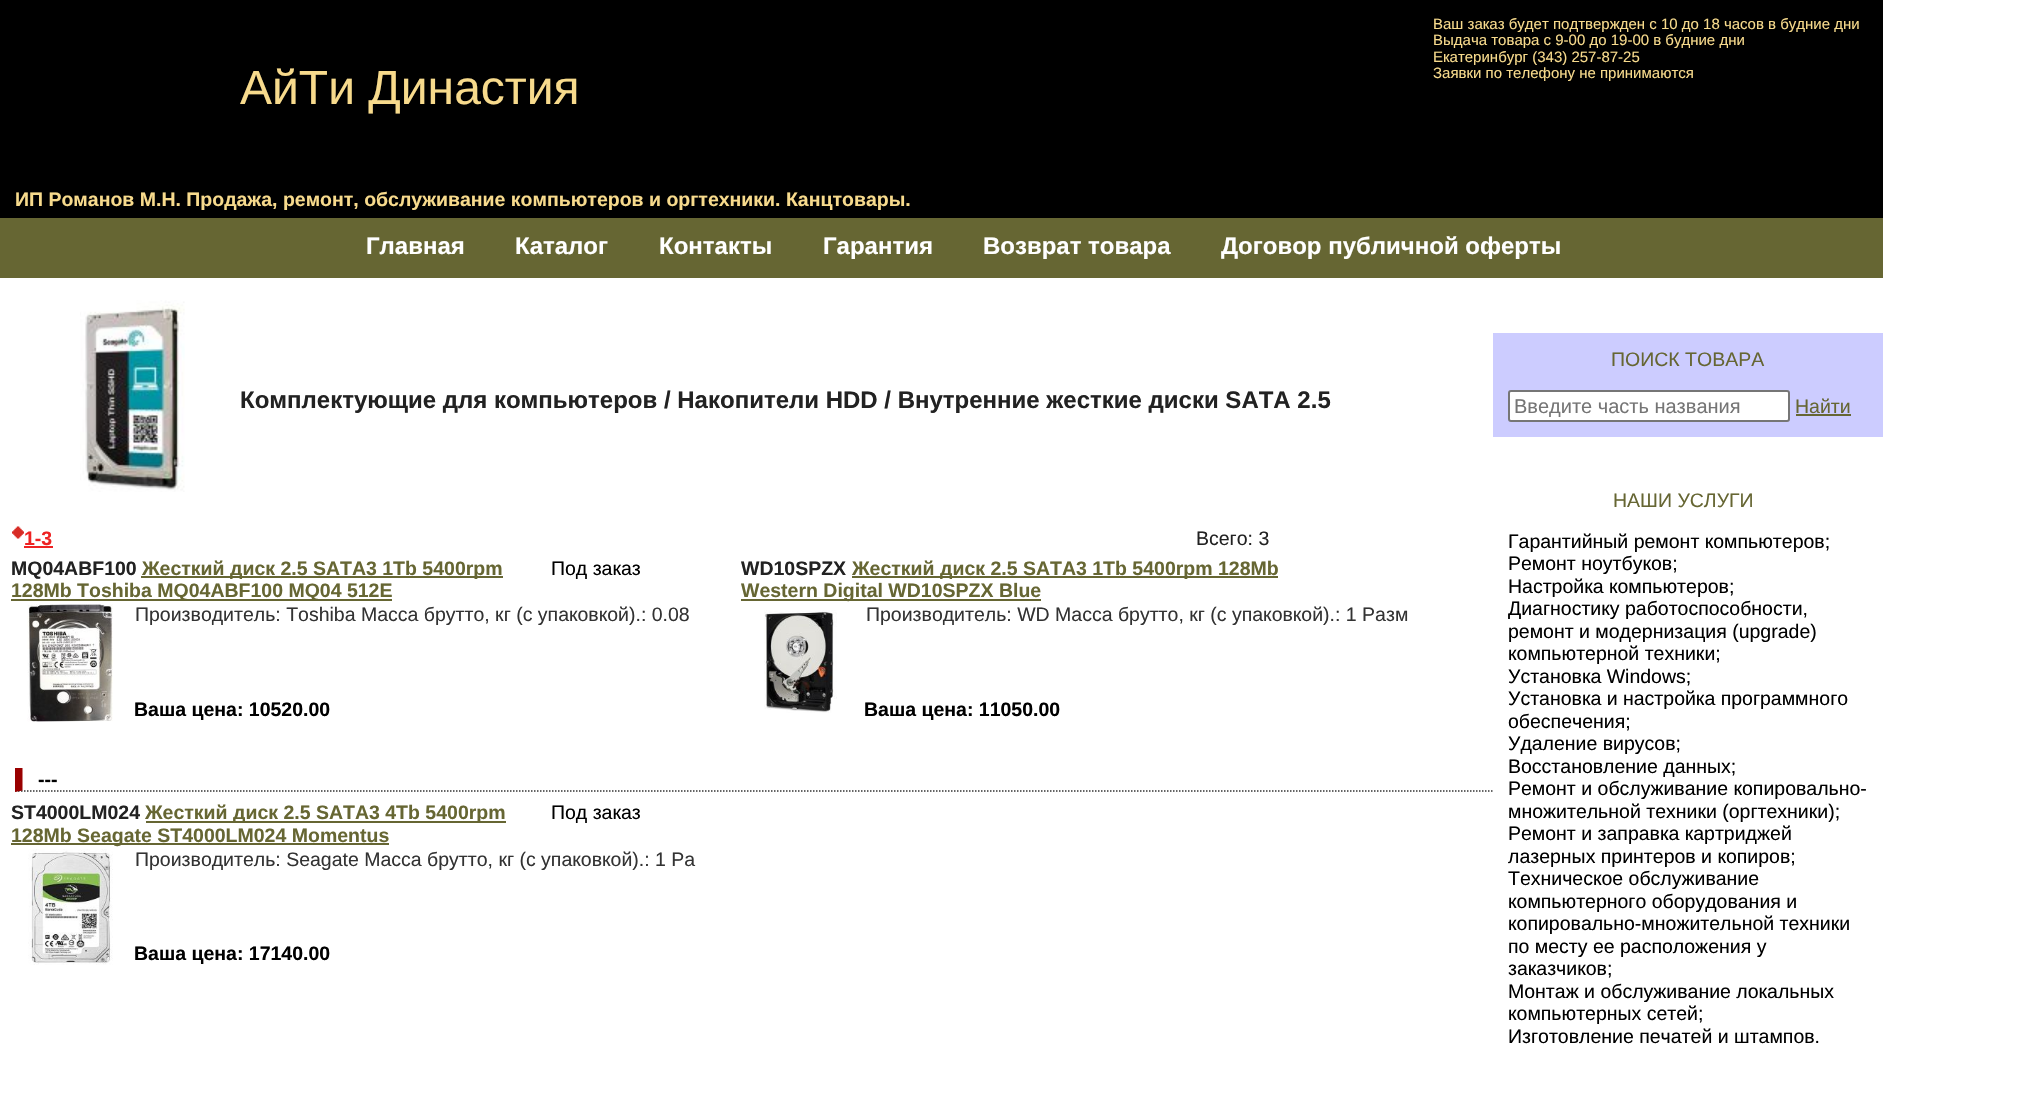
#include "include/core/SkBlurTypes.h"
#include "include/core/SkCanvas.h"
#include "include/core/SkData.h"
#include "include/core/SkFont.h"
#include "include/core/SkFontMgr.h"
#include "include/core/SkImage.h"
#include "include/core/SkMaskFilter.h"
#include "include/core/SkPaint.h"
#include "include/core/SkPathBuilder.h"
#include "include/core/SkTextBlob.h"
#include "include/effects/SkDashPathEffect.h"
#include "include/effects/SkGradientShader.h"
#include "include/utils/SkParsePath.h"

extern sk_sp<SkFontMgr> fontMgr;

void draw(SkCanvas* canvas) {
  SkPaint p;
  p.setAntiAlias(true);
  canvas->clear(SK_ColorWHITE);
  p.setColor(SK_ColorBLACK);
  canvas->drawRect(SkRect::MakeLTRB(0, 0, 1883, 218), p);
  p.setColor(SkColorSetRGB(102, 102, 51));
  canvas->drawRect(SkRect::MakeLTRB(0, 218, 1883, 278), p);
  canvas->drawImageRect(SkImages::DeferredFromEncodedData(SkData::MakeFromFileName("images/1.png")), SkRect::MakeLTRB(80, 300, 185, 492), SkSamplingOptions());
  canvas->drawImageRect(SkImages::DeferredFromEncodedData(SkData::MakeFromFileName("images/2.png")), SkRect::MakeLTRB(12, 526, 24, 539), SkSamplingOptions());
  p.setColor(SkColorSetRGB(238, 34, 34));
  canvas->drawRect(SkRect::MakeLTRB(24, 546, 53, 548), p);
  p.setColor(SkColorSetRGB(102, 102, 51));
  canvas->drawRect(SkRect::MakeLTRB(141, 576, 503, 578), p);
  canvas->drawRect(SkRect::MakeLTRB(11, 599, 392, 601), p);
  canvas->drawImageRect(SkImages::DeferredFromEncodedData(SkData::MakeFromFileName("images/3.png")), SkRect::MakeLTRB(27, 604, 113, 722), SkSamplingOptions());
  canvas->drawRect(SkRect::MakeLTRB(852, 576, 1278, 578), p);
  canvas->drawRect(SkRect::MakeLTRB(741, 599, 1041, 601), p);
  canvas->drawImageRect(SkImages::DeferredFromEncodedData(SkData::MakeFromFileName("images/4.png")), SkRect::MakeLTRB(764, 610, 837, 713), SkSamplingOptions());
  p.setStyle(SkPaint::kStroke_Style);
  p.setStrokeWidth(1.5f);
  p.setColor(SkColorSetRGB(51, 51, 51));
  p.setPathEffect(SkDashPathEffect::Make({{1.5f, 1.5f}}, 0));
  canvas->drawPath(SkPathBuilder().moveTo(15, 791).lineTo(1492.5f, 791).detach(), p);
  p.setPathEffect(nullptr);
  p.setStyle(SkPaint::kFill_Style);
  p.setColor(SkColorSetRGB(153, 0, 0));
  canvas->drawPath(SkPathBuilder().moveTo(15, 792).lineTo(15, 768).lineTo(22.5f, 768).lineTo(22.5f, 790.5f).close().detach(), p);
  p.setColor(SkColorSetRGB(102, 102, 51));
  canvas->drawRect(SkRect::MakeLTRB(146, 821, 506, 823), p);
  canvas->drawRect(SkRect::MakeLTRB(11, 843, 389, 845), p);
  canvas->drawImageRect(SkImages::DeferredFromEncodedData(SkData::MakeFromFileName("images/5.png")), SkRect::MakeLTRB(28, 849, 113, 965), SkSamplingOptions());
  p.setColor(SkColorSetRGB(204, 204, 255));
  canvas->drawRect(SkRect::MakeLTRB(1493, 333, 1883, 437), p);
  p.setColor(SK_ColorWHITE);
  canvas->drawRoundRect(SkRect::MakeLTRB(1509, 391, 1789, 421), 2, 2, p);
  p.setStyle(SkPaint::kStroke_Style);
  p.setStrokeWidth(2);
  p.setColor(SkColorSetRGB(118, 118, 118));
  canvas->drawRoundRect(SkRect::MakeLTRB(1509, 391, 1789, 421), 2, 2, p);
  p.setStyle(SkPaint::kFill_Style);
  p.setColor(SkColorSetRGB(102, 102, 51));
  canvas->drawRect(SkRect::MakeLTRB(1796, 414, 1851, 416), p);
  SkFont font1(fontMgr->matchFamilyStyle("Liberation Sans", SkFontStyle::Normal()), 15);
  font1.setSubpixel(true);
  p.setColor(SkColorSetRGB(247, 218, 140));
  canvas->drawString("Ваш заказ будет подтвержден с 10 до 18 часов в будние дни", 1433, 29, font1, p);
  canvas->drawString("Выдача товара с 9-00 до 19-00 в будние дни", 1433, 45, font1, p);
  canvas->drawString("Екатеринбург (343) 257-87-25", 1433, 62, font1, p);
  canvas->drawString("Заявки по телефону не принимаются", 1433, 78, font1, p);
  SkFont font2(fontMgr->matchFamilyStyle("Liberation Sans", SkFontStyle::Normal()), 48);
  font2.setSubpixel(true);
  canvas->drawString("АйТи Династия", 240, 104, font2, p);
  SkFont font3(fontMgr->matchFamilyStyle("Liberation Sans", SkFontStyle::Bold()), 19.5f);
  font3.setSubpixel(true);
  canvas->drawString("ИП Романов М.Н. Продажа, ремонт, обслуживание компьютеров и оргтехники. Канцтовары.", 15, 206, font3, p);
  SkFont font4(fontMgr->matchFamilyStyle("Liberation Sans", SkFontStyle::Bold()), 24);
  font4.setSubpixel(true);
  p.setColor(SK_ColorWHITE);
  canvas->drawString("Главная", 366, 254, font4, p);
  canvas->drawString("Каталог", 515, 254, font4, p);
  canvas->drawString("Контакты", 659, 254, font4, p);
  canvas->drawString("Гарантия", 823, 254, font4, p);
  canvas->drawString("Возврат товара", 983, 254, font4, p);
  canvas->drawString("Договор публичной оферты", 1221, 254, font4, p);
  p.setColor(SkColorSetRGB(34, 34, 34));
  canvas->drawString("Комплектующие для компьютеров / Накопители HDD / Внутренние жесткие диски SATA 2.5", 240, 408, font4, p);
  p.setColor(SkColorSetRGB(238, 34, 34));
  canvas->drawString("1-3", 24, 545, font3, p);
  SkFont font5(fontMgr->matchFamilyStyle("Liberation Sans", SkFontStyle::Normal()), 19.5f);
  font5.setSubpixel(true);
  p.setColor(SkColorSetRGB(34, 34, 34));
  canvas->drawString("Всего: 3", 1196, 545, font5, p);
  canvas->drawString("MQ04ABF100", 11, 575, font3, p);
  p.setColor(SkColorSetRGB(102, 102, 51));
  canvas->drawString("Жесткий диск 2.5 SATA3 1Tb 5400rpm", 142, 575, font3, p);
  canvas->drawString("128Mb Toshiba MQ04ABF100 MQ04 512E", 11, 597, font3, p);
  p.setColor(SK_ColorBLACK);
  canvas->drawString("Под заказ", 551, 575, font5, p);
  canvas->drawString("Ваша цена: 10520.00", 134, 716, font3, p);
  p.setColor(SkColorSetRGB(51, 51, 51));
  canvas->drawString("Производитель: Toshiba Масса брутто, кг (с упаковкой).: 0.08", 135, 621, font5, p);
  p.setColor(SkColorSetRGB(34, 34, 34));
  canvas->drawString("WD10SPZX", 741, 575, font3, p);
  p.setColor(SkColorSetRGB(102, 102, 51));
  canvas->drawString("Жесткий диск 2.5 SATA3 1Tb 5400rpm 128Mb", 852, 575, font3, p);
  canvas->drawString("Western Digital WD10SPZX Blue", 741, 597, font3, p);
  p.setColor(SkColorSetRGB(51, 51, 51));
  canvas->drawString("Производитель: WD Масса брутто, кг (с упаковкой).: 1 Разм", 866, 621, font5, p);
  p.setColor(SK_ColorBLACK);
  canvas->drawString("Ваша цена: 11050.00", 864, 716, font3, p);
  canvas->drawString("---", 38, 786, font3, p);
  p.setColor(SkColorSetRGB(34, 34, 34));
  canvas->drawString("ST4000LM024", 11, 819, font3, p);
  p.setColor(SkColorSetRGB(102, 102, 51));
  canvas->drawString("Жесткий диск 2.5 SATA3 4Tb 5400rpm", 145, 819, font3, p);
  canvas->drawString("128Mb Seagate ST4000LM024 Momentus", 11, 842, font3, p);
  p.setColor(SK_ColorBLACK);
  canvas->drawString("Под заказ", 551, 819, font5, p);
  canvas->drawString("Ваша цена: 17140.00", 134, 960, font3, p);
  p.setColor(SkColorSetRGB(51, 51, 51));
  canvas->drawString("Производитель: Seagate Масса брутто, кг (с упаковкой).: 1 Ра", 135, 866, font5, p);
  p.setColor(SkColorSetRGB(102, 102, 51));
  canvas->drawString("ПОИСК ТОВАРА", 1611, 366, font5, p);
  SkFont font6(fontMgr->matchFamilyStyle("Liberation Sans", SkFontStyle::Normal()), 20);
  font6.setSubpixel(true);
  p.setColor(SkColorSetRGB(117, 117, 117));
  canvas->drawString("Введите часть названия", 1514, 413, font6, p);
  p.setColor(SkColorSetRGB(102, 102, 51));
  canvas->drawString("Найти", 1795, 413, font5, p);
  canvas->drawString("НАШИ УСЛУГИ", 1613, 507, font5, p);
  p.setColor(SK_ColorBLACK);
  canvas->drawString("Гарантийный ремонт компьютеров;", 1508, 548, font5, p);
  canvas->drawString("Ремонт ноутбуков;", 1508, 570, font5, p);
  canvas->drawString("Настройка компьютеров;", 1508, 593, font5, p);
  canvas->drawString("Диагностику работоспособности,", 1508, 615, font5, p);
  canvas->drawString("ремонт и модернизация (upgrade)", 1508, 638, font5, p);
  canvas->drawString("компьютерной техники;", 1508, 660, font5, p);
  canvas->drawString("Установка Windows;", 1508, 683, font5, p);
  canvas->drawString("Установка и настройка программного", 1508, 705, font5, p);
  canvas->drawString("обеспечения;", 1508, 728, font5, p);
  canvas->drawString("Удаление вирусов;", 1508, 750, font5, p);
  canvas->drawString("Восстановление данных;", 1508, 773, font5, p);
  canvas->drawString("Ремонт и обслуживание копировально-", 1508, 795, font5, p);
  canvas->drawString("множительной техники (оргтехники);", 1508, 818, font5, p);
  canvas->drawString("Ремонт и заправка картриджей", 1508, 840, font5, p);
  canvas->drawString("лазерных принтеров и копиров;", 1508, 863, font5, p);
  canvas->drawString("Техническое обслуживание", 1508, 885, font5, p);
  canvas->drawString("компьютерного оборудования и", 1508, 908, font5, p);
  canvas->drawString("копировально-множительной техники", 1508, 930, font5, p);
  canvas->drawString("по месту ее расположения у", 1508, 953, font5, p);
  canvas->drawString("заказчиков;", 1508, 975, font5, p);
  canvas->drawString("Монтаж и обслуживание локальных", 1508, 998, font5, p);
  canvas->drawString("компьютерных сетей;", 1508, 1020, font5, p);
  canvas->drawString("Изготовление печатей и штампов.", 1508, 1043, font5, p);
}
